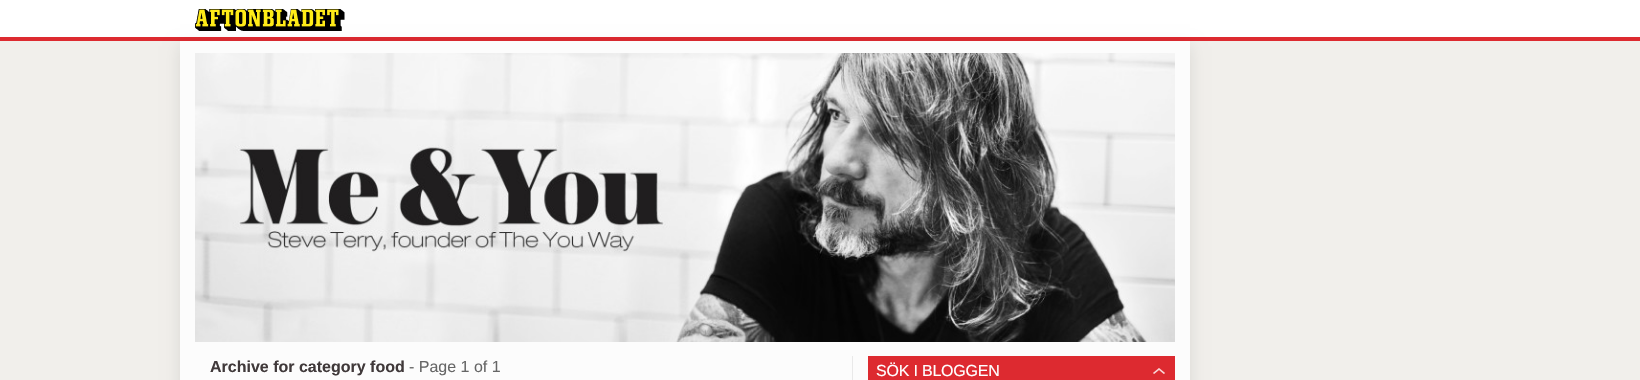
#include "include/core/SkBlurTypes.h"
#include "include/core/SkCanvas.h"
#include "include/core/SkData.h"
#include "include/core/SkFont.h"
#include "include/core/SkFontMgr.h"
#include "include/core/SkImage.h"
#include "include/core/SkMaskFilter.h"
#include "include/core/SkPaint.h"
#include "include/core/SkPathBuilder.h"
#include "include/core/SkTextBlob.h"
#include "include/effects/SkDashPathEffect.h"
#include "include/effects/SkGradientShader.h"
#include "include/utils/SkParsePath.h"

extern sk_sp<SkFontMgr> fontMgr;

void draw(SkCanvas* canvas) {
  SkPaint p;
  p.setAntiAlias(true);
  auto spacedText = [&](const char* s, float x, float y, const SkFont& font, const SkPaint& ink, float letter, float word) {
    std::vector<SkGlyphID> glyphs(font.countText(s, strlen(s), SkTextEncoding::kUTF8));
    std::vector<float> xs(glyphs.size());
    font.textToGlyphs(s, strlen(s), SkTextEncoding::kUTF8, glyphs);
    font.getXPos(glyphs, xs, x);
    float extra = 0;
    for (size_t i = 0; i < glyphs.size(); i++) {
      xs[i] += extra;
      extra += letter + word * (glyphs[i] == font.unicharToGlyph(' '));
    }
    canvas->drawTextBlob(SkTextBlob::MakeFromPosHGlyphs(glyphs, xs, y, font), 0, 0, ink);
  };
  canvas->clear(SkColorSetRGB(241, 239, 235));
  p.setColor(SK_ColorWHITE);
  canvas->drawRect(SkRect::MakeLTRB(0, 0, 1640, 37), p);
  p.setColor(SkColorSetRGB(221, 42, 48));
  canvas->drawRect(SkRect::MakeLTRB(0, 37, 1640, 41), p);
  canvas->drawImageRect(SkImages::DeferredFromEncodedData(SkData::MakeFromFileName("images/1.png")), SkRect::MakeLTRB(195, 9, 345, 31), SkSamplingOptions());
  p.setColor(SkColorSetARGB(26, 0, 0, 0));
  p.setMaskFilter(SkMaskFilter::MakeBlur(kNormal_SkBlurStyle, 7.5f));
  canvas->drawRect(SkRect::MakeLTRB(180, 46, 1190, 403), p);
  p.setMaskFilter(nullptr);
  p.setColor(SkColorSetRGB(252, 252, 252));
  canvas->drawRect(SkRect::MakeLTRB(180, 41, 1190, 380), p);
  canvas->drawImageRect(SkImages::DeferredFromEncodedData(SkData::MakeFromFileName("images/2.png")), SkRect::MakeLTRB(195, 53, 1175, 342), SkSamplingOptions());
  p.setColor(SkColorSetRGB(233, 233, 233));
  canvas->drawRect(SkRect::MakeLTRB(852, 356, 853, 380), p);
  p.setColor(SkColorSetRGB(221, 42, 48));
  canvas->drawRect(SkRect::MakeLTRB(868, 356, 1175, 380), p);
  canvas->drawImageRect(SkImages::DeferredFromEncodedData(SkData::MakeFromFileName("images/3.png")), SkRect::MakeLTRB(1153, 368, 1165, 374), SkSamplingOptions());
  SkFont font1(fontMgr->matchFamilyStyle("Liberation Sans", SkFontStyle::Bold()), 16);
  font1.setSubpixel(true);
  p.setColor(SkColorSetRGB(64, 57, 58));
  canvas->drawString("Archive for category food", 210, 372, font1, p);
  SkFont font2(fontMgr->matchFamilyStyle("Liberation Sans", SkFontStyle::Normal()), 16);
  font2.setSubpixel(true);
  p.setColor(SkColorSetRGB(102, 102, 102));
  canvas->drawString("- Page 1 of 1", 409, 372, font2, p);
  p.setColor(SK_ColorWHITE);
  spacedText("SÖK I BLOGGEN", 876, 376, font2, p, -0.2f, 0);
}
